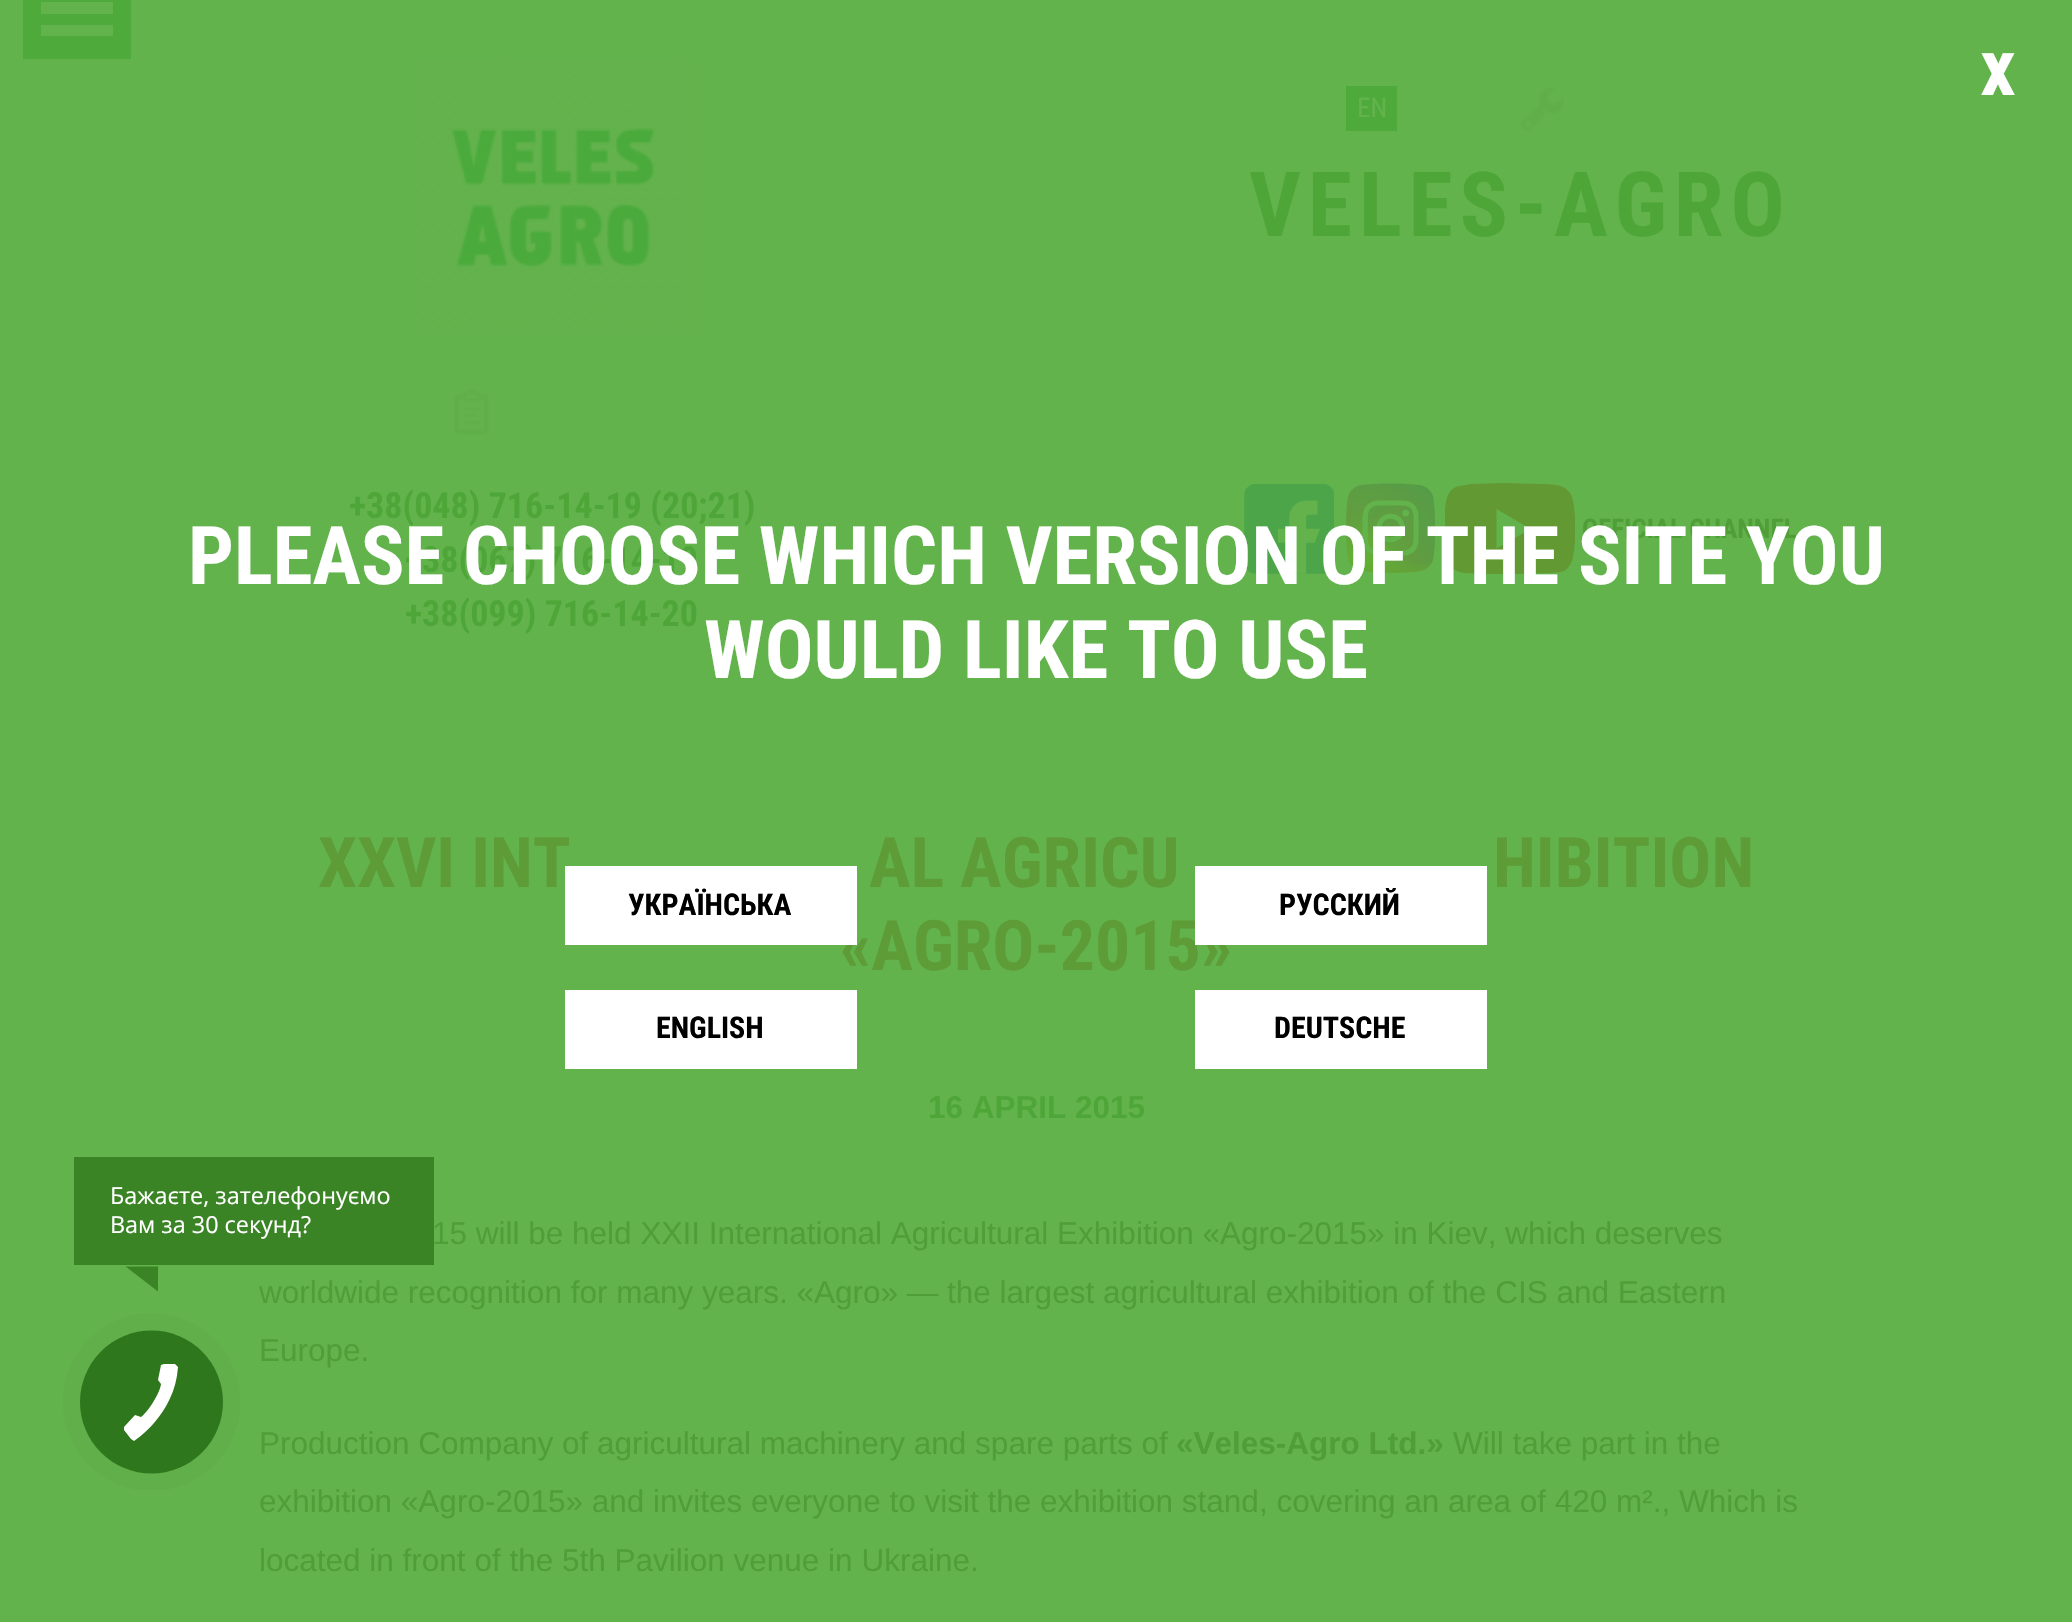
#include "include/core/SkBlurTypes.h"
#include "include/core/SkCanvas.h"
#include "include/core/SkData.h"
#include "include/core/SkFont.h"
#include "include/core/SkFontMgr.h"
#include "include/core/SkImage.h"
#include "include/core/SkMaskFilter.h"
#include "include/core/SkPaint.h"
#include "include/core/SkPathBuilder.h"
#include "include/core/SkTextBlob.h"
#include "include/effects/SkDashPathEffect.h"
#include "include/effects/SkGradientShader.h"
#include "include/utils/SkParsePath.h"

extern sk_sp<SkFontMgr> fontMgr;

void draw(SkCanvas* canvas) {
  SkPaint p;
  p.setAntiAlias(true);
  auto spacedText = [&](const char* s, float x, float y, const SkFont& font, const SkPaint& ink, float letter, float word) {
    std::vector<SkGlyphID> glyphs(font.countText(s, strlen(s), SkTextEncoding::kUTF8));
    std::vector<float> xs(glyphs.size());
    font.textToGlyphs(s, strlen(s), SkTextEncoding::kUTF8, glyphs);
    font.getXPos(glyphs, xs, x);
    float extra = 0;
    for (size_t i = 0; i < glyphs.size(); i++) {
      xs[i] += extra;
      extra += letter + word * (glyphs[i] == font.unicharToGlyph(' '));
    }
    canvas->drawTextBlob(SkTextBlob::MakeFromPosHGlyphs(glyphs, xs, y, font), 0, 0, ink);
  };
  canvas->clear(SkColorSetRGB(99, 179, 77));
  p.setColor(SkColorSetRGB(79, 170, 60));
  canvas->drawRect(SkRect::MakeLTRB(23, 0, 131, 59), p);
  p.setColor(SkColorSetRGB(99, 179, 77));
  canvas->drawRect(SkRect::MakeLTRB(41, 25, 113, 36), p);
  canvas->drawRect(SkRect::MakeLTRB(41, 2, 113, 14), p);
  p.setColor(SK_ColorWHITE);
  canvas->drawRect(SkRect::MakeLTRB(565, 990, 857, 1069), p);
  canvas->drawRect(SkRect::MakeLTRB(1195, 990, 1487, 1069), p);
  canvas->drawImageRect(SkImages::DeferredFromEncodedData(SkData::MakeFromFileName("images/1.png")), SkRect::MakeLTRB(414, 59, 691, 336), SkSamplingOptions());
  p.setColor(SkColorSetRGB(79, 170, 60));
  canvas->drawRect(SkRect::MakeLTRB(1346, 86, 1397, 131), p);
  canvas->drawImageRect(SkImages::DeferredFromEncodedData(SkData::MakeFromFileName("images/2.png")), SkRect::MakeLTRB(1521, 88, 1564, 131), SkSamplingOptions());
  canvas->drawImageRect(SkImages::DeferredFromEncodedData(SkData::MakeFromFileName("images/3.png")), SkRect::MakeLTRB(454, 389, 491, 435), SkSamplingOptions());
  canvas->drawImageRect(SkImages::DeferredFromEncodedData(SkData::MakeFromFileName("images/4.png")), SkRect::MakeLTRB(1244, 484, 1334, 574), SkSamplingOptions());
  canvas->drawImageRect(SkImages::DeferredFromEncodedData(SkData::MakeFromFileName("images/5.png")), SkRect::MakeLTRB(1346, 483, 1435, 573), SkSamplingOptions());
  canvas->save();
  canvas->clipRect(SkRect::MakeLTRB(1445, 464, 1575, 594));
  p.setColor(SkColorSetRGB(99, 153, 51));
  canvas->drawPath(SkPathBuilder().moveTo(1572, 497).cubicTo(1571, 493, 1567, 489, 1563, 487).cubicTo(1556, 484, 1547, 484, 1540, 484).lineTo(1503, 483).lineTo(1471, 484).lineTo(1459, 486).cubicTo(1445, 489, 1445, 506, 1445, 517).cubicTo(1444, 531, 1444, 546, 1447, 560).cubicTo(1448, 565, 1452, 569, 1457, 571).cubicTo(1463, 574, 1472, 573, 1479, 574).lineTo(1512, 574).lineTo(1549, 573).lineTo(1561, 572).cubicTo(1574, 569, 1574, 551, 1575, 541).cubicTo(1575, 527, 1576, 510, 1572, 497).close().detach(), p);
  canvas->restore();
  p.setColor(SkColorSetRGB(99, 179, 77));
  canvas->drawPath(SkPathBuilder().moveTo(1496.5f, 548.5f).lineTo(1530.5f, 529).lineTo(1496.5f, 509).close().detach(), p);
  p.setColor(SkColorSetARGB(204, 48, 120, 28));
  canvas->drawRect(SkRect::MakeLTRB(74, 1157, 434, 1265), p);
  p.setColor(SkColorSetRGB(58, 132, 38));
  canvas->drawPath(SkPathBuilder().moveTo(158, 1266.5f).lineTo(125.5f, 1266.5f).lineTo(158, 1291.5f).detach(), p);
  canvas->save();
  canvas->clipRect(SkRect::MakeLTRB(63, 1312, 241, 1490));
  p.setColor(SkColorSetRGB(96, 175, 74));
  canvas->drawCircle(151.5f, 1402, 89, p);
  canvas->restore();
  p.setColor(SkColorSetRGB(47, 119, 28));
  canvas->drawCircle(151.5f, 1402, 71.5f, p);
  p.setColor(SK_ColorWHITE);
  canvas->drawPath(SkPathBuilder(SkPathFillType::kEvenOdd).moveTo(161, 1384).cubicTo(160, 1393, 148, 1412, 141, 1417).lineTo(135, 1415).lineTo(124, 1427).lineTo(124, 1430).lineTo(131, 1439).lineTo(134, 1441).cubicTo(134, 1441, 175, 1415, 178, 1367).lineTo(175, 1364).lineTo(164, 1364).lineTo(161, 1365).lineTo(158, 1380).lineTo(161, 1384).detach(), p);
  SkFont font1(fontMgr->matchFamilyStyle("Roboto Condensed", SkFontStyle::Bold()), 79);
  font1.setSubpixel(true);
  canvas->drawString("x", 1980, 95, font1, p);
  SkFont font2(fontMgr->matchFamilyStyle("Roboto Condensed", SkFontStyle::Bold()), 81);
  font2.setSubpixel(true);
  canvas->drawString("WOULD LIKE TO USE", 704, 678, font2, p);
  SkFont font3(fontMgr->matchFamilyStyle("Roboto Condensed", SkFontStyle::Bold()), 30);
  font3.setSubpixel(true);
  p.setColor(SK_ColorBLACK);
  canvas->drawString("ENGLISH", 656, 1038, font3, p);
  canvas->drawString("DEUTSCHE", 1274, 1038, font3, p);
  SkFont font4(fontMgr->matchFamilyStyle("Roboto Condensed", SkFontStyle::Normal()), 27);
  font4.setSubpixel(true);
  p.setColor(SkColorSetRGB(99, 179, 77));
  canvas->drawString("EN", 1357, 117, font4, p);
  SkFont font5(fontMgr->matchFamilyStyle("Roboto Condensed", SkFontStyle::Bold()), 90);
  font5.setSubpixel(true);
  p.setColor(SkColorSetRGB(79, 166, 56));
  spacedText("VELES-AGRO", 1249, 236, font5, p, 6.75f, 0);
  SkFont font6(fontMgr->matchFamilyStyle("Roboto Condensed", SkFontStyle::Bold()), 36);
  font6.setSubpixel(true);
  canvas->drawString("+38(048) 716-14-19 (20;21)", 349, 518, font6, p);
  canvas->drawString("+38(067) 716-14-19", 405, 572, font6, p);
  canvas->drawString("+38(099) 716-14-20", 405, 626, font6, p);
  SkFont font7(fontMgr->matchFamilyStyle("Roboto Condensed", SkFontStyle::Bold()), 27);
  font7.setSubpixel(true);
  p.setColor(SkColorSetRGB(79, 158, 56));
  canvas->drawString("OFFICIAL CHANNEL", 1582, 538, font7, p);
  p.setColor(SK_ColorWHITE);
  canvas->drawString("PLEASE CHOOSE WHICH VERSION OF THE SITE YOU", 188, 584, font2, p);
  SkFont font8(fontMgr->matchFamilyStyle("Roboto Condensed", SkFontStyle::Bold()), 69.75f);
  font8.setSubpixel(true);
  p.setColor(SkColorSetRGB(93, 156, 55));
  canvas->drawString("XXVI INT", 318, 887, font8, p);
  canvas->drawString("AL AGRICU", 869, 887, font8, p);
  canvas->drawString("HIBITION", 1493, 887, font8, p);
  canvas->drawString("«AGRO-2015»", 840, 970, font8, p);
  p.setColor(SK_ColorWHITE);
  canvas->drawRect(SkRect::MakeLTRB(1195, 866, 1487, 945), p);
  p.setColor(SK_ColorBLACK);
  canvas->drawString("РУССКИЙ", 1279, 915, font3, p);
  p.setColor(SK_ColorWHITE);
  canvas->drawRect(SkRect::MakeLTRB(565, 866, 857, 945), p);
  p.setColor(SK_ColorBLACK);
  canvas->drawString("УКРАЇНСЬКA", 628, 915, font3, p);
  SkFont font9(fontMgr->matchFamilyStyle("Liberation Sans", SkFontStyle::Bold()), 31.5f);
  font9.setSubpixel(true);
  p.setColor(SkColorSetRGB(79, 166, 56));
  canvas->drawString("16 APRIL 2015", 928, 1118, font9, p);
  SkFont font10(fontMgr->matchFamilyStyle("Liberation Sans", SkFontStyle::Normal()), 31.5f);
  font10.setSubpixel(true);
  p.setColor(SkColorSetRGB(79, 158, 56));
  canvas->drawString("15 will be held XXII International Agricultural Exhibition «Agro-2015» in Kiev, which deserves", 432, 1244, font10, p);
  canvas->drawString("worldwide recognition for many years. «Agro» — the largest agricultural exhibition of the CIS and Eastern", 259, 1303, font10, p);
  canvas->drawString("Europe.", 259, 1361, font10, p);
  canvas->drawString("Production Company of agricultural machinery and spare parts of", 259, 1454, font10, p);
  canvas->drawString("«Veles-Agro Ltd.»", 1176, 1454, font9, p);
  canvas->drawString("Will take part in the", 1453, 1454, font10, p);
  canvas->drawString("exhibition «Agro-2015» and invites everyone to visit the exhibition stand, covering an area of 420 m²., Which is", 259, 1512, font10, p);
  canvas->drawString("located in front of the 5th Pavilion venue in Ukraine.", 259, 1571, font10, p);
  SkFont font11(fontMgr->matchFamilyStyle("Open Sans", SkFontStyle::Normal()), 23.4f);
  font11.setSubpixel(true);
  p.setColor(SK_ColorWHITE);
  canvas->drawString("Бажаєте, зателефонуємо", 110, 1204, font11, p);
  canvas->drawString("Вам за 30 секунд?", 110, 1233, font11, p);
}
